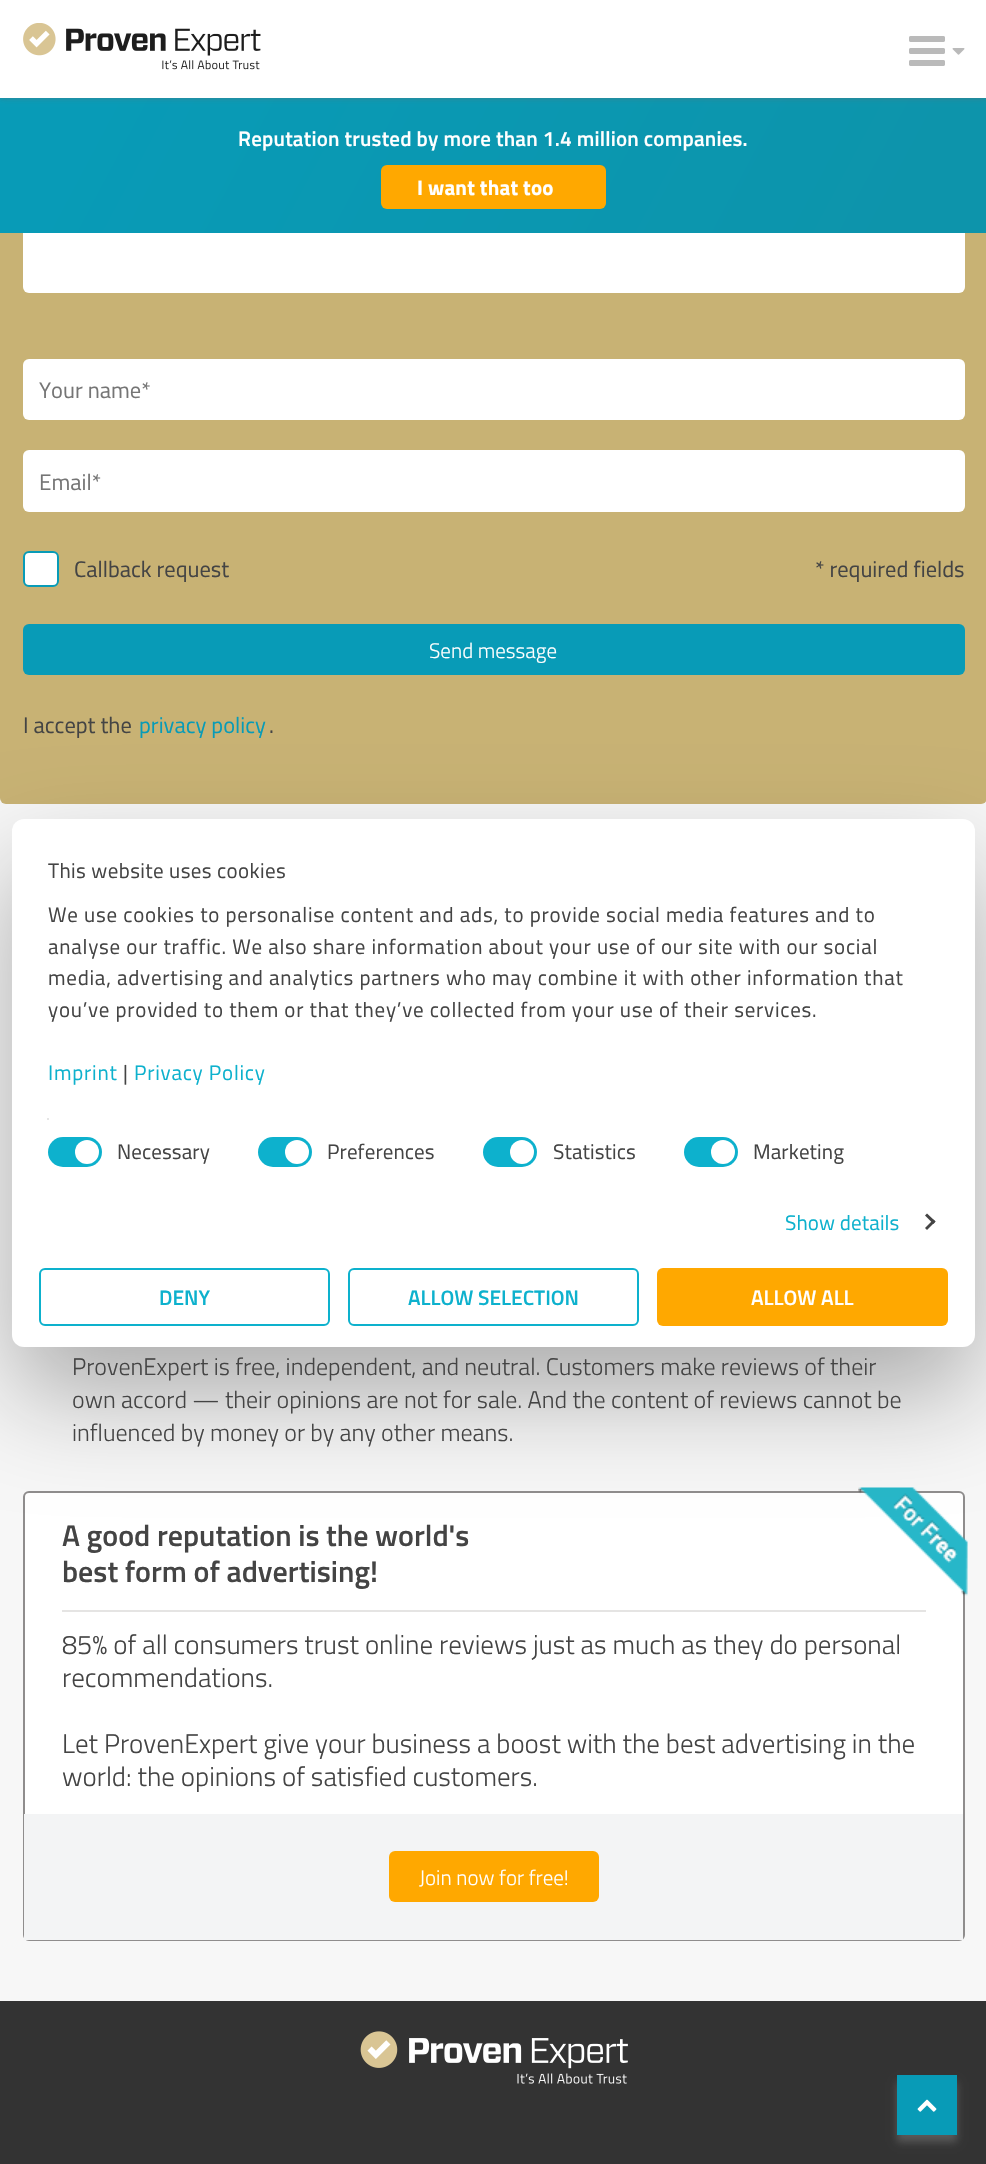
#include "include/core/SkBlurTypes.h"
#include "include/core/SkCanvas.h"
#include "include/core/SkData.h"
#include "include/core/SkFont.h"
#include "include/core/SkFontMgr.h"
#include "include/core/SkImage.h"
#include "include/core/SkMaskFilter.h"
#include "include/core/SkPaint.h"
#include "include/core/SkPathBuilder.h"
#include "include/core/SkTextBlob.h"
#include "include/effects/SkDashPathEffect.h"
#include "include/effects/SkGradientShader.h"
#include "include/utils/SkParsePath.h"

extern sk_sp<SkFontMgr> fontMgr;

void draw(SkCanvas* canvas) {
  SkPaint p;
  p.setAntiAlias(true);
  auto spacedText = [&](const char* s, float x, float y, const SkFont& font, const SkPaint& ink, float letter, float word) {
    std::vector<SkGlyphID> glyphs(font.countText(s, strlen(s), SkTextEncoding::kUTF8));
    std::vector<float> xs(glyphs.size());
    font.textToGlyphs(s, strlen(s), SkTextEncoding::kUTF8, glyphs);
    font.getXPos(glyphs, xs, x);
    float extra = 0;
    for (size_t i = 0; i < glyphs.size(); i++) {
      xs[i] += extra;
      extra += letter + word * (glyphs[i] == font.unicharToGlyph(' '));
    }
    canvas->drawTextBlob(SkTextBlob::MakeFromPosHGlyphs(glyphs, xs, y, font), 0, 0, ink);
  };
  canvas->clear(SkColorSetRGB(247, 247, 247));
  p.setColor(SkColorSetRGB(200, 178, 116));
  canvas->drawRoundRect(SkRect::MakeLTRB(0, -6, 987, 804), 6, 6, p);
  p.setColor(SK_ColorWHITE);
  canvas->drawRoundRect(SkRect::MakeLTRB(23, -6, 965, 293), 6, 6, p);
  {
    const SkColor colors[] = {SkColorSetRGB(8, 155, 183), SkColorSetRGB(13, 148, 171)};
    const float stops[] = {0.08f, 0.92f};
    const SkPoint ends[] = {{81, -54}, {906, 384}};
    p.setShader(SkGradientShader::MakeLinear(ends, colors, stops, 2, SkTileMode::kClamp));
    p.setAlpha(255);
  }
  canvas->drawRect(SkRect::MakeLTRB(0, 98, 986, 233), p);
  p.setShader(nullptr);
  p.setColor(SkColorSetARGB(128, 105, 105, 105));
  p.setMaskFilter(SkMaskFilter::MakeBlur(kNormal_SkBlurStyle, 3));
  canvas->drawRect(SkRect::MakeLTRB(0, 0, 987, 98), p);
  p.setMaskFilter(nullptr);
  p.setColor(SK_ColorWHITE);
  canvas->drawRect(SkRect::MakeLTRB(0, 0, 986, 98), p);
  canvas->drawImageRect(SkImages::DeferredFromEncodedData(SkData::MakeFromFileName("images/1.png")), SkRect::MakeLTRB(23, 23, 261, 70), SkSamplingOptions());
  canvas->drawImageRect(SkImages::DeferredFromEncodedData(SkData::MakeFromFileName("images/2.png")), SkRect::MakeLTRB(909, 36, 945, 66), SkSamplingOptions());
  canvas->drawImageRect(SkImages::DeferredFromEncodedData(SkData::MakeFromFileName("images/3.png")), SkRect::MakeLTRB(952, 48, 965, 55), SkSamplingOptions());
  p.setColor(SkColorSetRGB(255, 168, 0));
  canvas->drawRoundRect(SkRect::MakeLTRB(381, 165, 606, 209), 6, 6, p);
  p.setColor(SK_ColorWHITE);
  canvas->drawRoundRect(SkRect::MakeLTRB(23, 359, 965, 420), 6, 6, p);
  canvas->drawRoundRect(SkRect::MakeLTRB(23, 450, 965, 512), 6, 6, p);
  canvas->drawRoundRect(SkRect::MakeLTRB(24, 552, 58, 586), 5, 5, p);
  p.setStyle(SkPaint::kStroke_Style);
  p.setStrokeWidth(2);
  p.setColor(SkColorSetRGB(8, 155, 183));
  canvas->drawRoundRect(SkRect::MakeLTRB(24, 552, 58, 586), 5, 5, p);
  p.setStyle(SkPaint::kFill_Style);
  canvas->drawRoundRect(SkRect::MakeLTRB(23, 624, 965, 675), 6, 6, p);
  p.setColor(SK_ColorWHITE);
  canvas->drawRoundRect(SkRect::MakeLTRB(24, 1492, 964, 1940), 5, 5, p);
  p.setStyle(SkPaint::kStroke_Style);
  p.setColor(SkColorSetRGB(143, 141, 141));
  canvas->drawRoundRect(SkRect::MakeLTRB(24, 1492, 964, 1940), 5, 5, p);
  canvas->drawImageRect(SkImages::DeferredFromEncodedData(SkData::MakeFromFileName("images/4.png")), SkRect::MakeLTRB(858, 1487, 968, 1596), SkSamplingOptions());
  p.setStyle(SkPaint::kFill_Style);
  p.setColor(SkColorSetRGB(229, 228, 227));
  canvas->drawRect(SkRect::MakeLTRB(62, 1610, 926, 1612), p);
  p.setColor(SkColorSetRGB(243, 244, 245));
  canvas->drawRect(SkRect::MakeLTRB(24, 1814, 963, 1940), p);
  p.setColor(SkColorSetRGB(255, 168, 0));
  canvas->drawRoundRect(SkRect::MakeLTRB(389, 1851, 599, 1902), 6, 6, p);
  p.setColor(SkColorSetARGB(77, 0, 0, 0));
  p.setMaskFilter(SkMaskFilter::MakeBlur(kNormal_SkBlurStyle, 51));
  canvas->drawRoundRect(SkRect::MakeLTRB(12, 867, 975, 1395), 12, 12, p);
  p.setMaskFilter(nullptr);
  p.setColor(SK_ColorWHITE);
  canvas->drawRoundRect(SkRect::MakeLTRB(12, 819, 975, 1347), 12, 12, p);
  p.setColor(SkColorSetRGB(229, 229, 229));
  canvas->drawRect(SkRect::MakeLTRB(47, 1118, 49, 1120), p);
  p.setColor(SkColorSetRGB(13, 177, 205));
  canvas->drawRoundRect(SkRect::MakeLTRB(48, 1137, 102, 1167), 15, 15, p);
  p.setColor(SK_ColorWHITE);
  canvas->drawCircle(87, 1152, 12, p);
  p.setColor(SkColorSetRGB(13, 177, 205));
  canvas->drawRoundRect(SkRect::MakeLTRB(258, 1137, 312, 1167), 15, 15, p);
  p.setColor(SK_ColorWHITE);
  canvas->drawCircle(297, 1152, 12, p);
  p.setColor(SkColorSetRGB(13, 177, 205));
  canvas->drawRoundRect(SkRect::MakeLTRB(483, 1137, 537, 1167), 15, 15, p);
  p.setColor(SK_ColorWHITE);
  canvas->drawCircle(522, 1152, 12, p);
  p.setColor(SkColorSetRGB(13, 177, 205));
  canvas->drawRoundRect(SkRect::MakeLTRB(684, 1137, 738, 1167), 15, 15, p);
  p.setColor(SK_ColorWHITE);
  canvas->drawCircle(723, 1152, 12, p);
  p.setColor(SkColorSetRGB(68, 68, 68));
  canvas->drawPath(SkPathBuilder().moveTo(927, 1213.5f).lineTo(935.5f, 1221.5f).lineTo(933.5f, 1224).lineTo(925, 1215.5f).close().detach(), p);
  canvas->drawPath(SkPathBuilder().moveTo(933.5f, 1219.5f).lineTo(935.5f, 1221.5f).lineTo(927, 1230).lineTo(925, 1228).close().detach(), p);
  p.setStyle(SkPaint::kStroke_Style);
  p.setColor(SkColorSetRGB(13, 177, 205));
  canvas->drawRoundRect(SkRect::MakeLTRB(40, 1269, 329, 1325), 5, 5, p);
  canvas->drawRoundRect(SkRect::MakeLTRB(349, 1269, 638, 1325), 5, 5, p);
  p.setStyle(SkPaint::kFill_Style);
  p.setColor(SkColorSetRGB(255, 168, 0));
  canvas->drawRoundRect(SkRect::MakeLTRB(657, 1268, 948, 1326), 6, 6, p);
  p.setColor(SkColorSetRGB(51, 51, 51));
  canvas->drawRect(SkRect::MakeLTRB(0, 2001, 986, 2164), p);
  canvas->drawImageRect(SkImages::DeferredFromEncodedData(SkData::MakeFromFileName("images/5.png")), SkRect::MakeLTRB(360, 2031, 628, 2084), SkSamplingOptions());
  p.setColor(SkColorSetARGB(128, 128, 128, 128));
  p.setMaskFilter(SkMaskFilter::MakeBlur(kNormal_SkBlurStyle, 4));
  canvas->drawRect(SkRect::MakeLTRB(897, 2082, 957, 2142), p);
  p.setMaskFilter(nullptr);
  p.setColor(SkColorSetRGB(8, 155, 183));
  canvas->drawRect(SkRect::MakeLTRB(897, 2075, 957, 2135), p);
  canvas->drawImageRect(SkImages::DeferredFromEncodedData(SkData::MakeFromFileName("images/6.png")), SkRect::MakeLTRB(917, 2099, 937, 2112), SkSamplingOptions());
  SkFont font1(fontMgr->matchFamilyStyle("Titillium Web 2", SkFontStyle(600, SkFontStyle::kNormal_Width, SkFontStyle::kUpright_Slant)), 21);
  font1.setSubpixel(true);
  p.setColor(SK_ColorWHITE);
  spacedText("Reputation trusted by more than 1.4 million companies.", 238, 146, font1, p, 0.2f, 0);
  SkFont font2(fontMgr->matchFamilyStyle("Titillium Web", SkFontStyle::Bold()), 21);
  font2.setSubpixel(true);
  spacedText("I want that too", 417, 195, font2, p, 0.2f, 0);
  SkFont font3(fontMgr->matchFamilyStyle("Titillium Web", SkFontStyle::Normal()), 22.5f);
  font3.setSubpixel(true);
  p.setColor(SkColorSetRGB(117, 117, 117));
  canvas->drawString("Your name*", 39, 398, font3, p);
  canvas->drawString("Email*", 39, 490, font3, p);
  p.setColor(SkColorSetRGB(68, 68, 68));
  canvas->drawString("Callback request", 74, 577, font3, p);
  canvas->drawString("* required fields", 815, 577, font3, p);
  SkFont font4(fontMgr->matchFamilyStyle("Titillium Web", SkFontStyle(300, SkFontStyle::kNormal_Width, SkFontStyle::kUpright_Slant)), 21);
  font4.setSubpixel(true);
  p.setColor(SK_ColorWHITE);
  canvas->drawString("Send message", 429, 658, font4, p);
  p.setColor(SkColorSetRGB(68, 68, 68));
  canvas->drawString("I accept the", 23, 733, font3, p);
  p.setColor(SkColorSetRGB(8, 155, 183));
  canvas->drawString("privacy policy", 139, 733, font3, p);
  p.setColor(SkColorSetRGB(68, 68, 68));
  canvas->drawString(".", 269, 733, font3, p);
  SkFont font5(fontMgr->matchFamilyStyle("Titillium Web", SkFontStyle(300, SkFontStyle::kNormal_Width, SkFontStyle::kUpright_Slant)), 24);
  font5.setSubpixel(true);
  canvas->drawString("ProvenExpert is free, independent, and neutral. Customers make reviews of their", 72, 1375, font5, p);
  canvas->drawString("own accord — their opinions are not for sale. And the content of reviews cannot be", 72, 1408, font5, p);
  canvas->drawString("influenced by money or by any other means.", 72, 1441, font5, p);
  SkFont font6(fontMgr->matchFamilyStyle("Titillium Web", SkFontStyle(600, SkFontStyle::kNormal_Width, SkFontStyle::kUpright_Slant)), 30);
  font6.setSubpixel(true);
  canvas->drawString("A good reputation is the world's", 62, 1546, font6, p);
  canvas->drawString("best form of advertising!", 62, 1582, font6, p);
  SkFont font7(fontMgr->matchFamilyStyle("Titillium Web", SkFontStyle(300, SkFontStyle::kNormal_Width, SkFontStyle::kUpright_Slant)), 27);
  font7.setSubpixel(true);
  canvas->drawString("85% of all consumers trust online reviews just as much as they do personal", 62, 1654, font7, p);
  canvas->drawString("recommendations.", 62, 1687, font7, p);
  canvas->drawString("Let ProvenExpert give your business a boost with the best advertising in the", 62, 1753, font7, p);
  canvas->drawString("world: the opinions of satisfied customers.", 62, 1786, font7, p);
  p.setColor(SK_ColorWHITE);
  canvas->drawString("Join now for free!", 419, 1885, font4, p);
  SkFont font8(fontMgr->matchFamilyStyle("Titillium Web", SkFontStyle::Normal()), 21);
  font8.setSubpixel(true);
  p.setColor(SkColorSetRGB(68, 68, 68));
  spacedText("This website uses cookies", 48, 878, font8, p, 0.4f, 0);
  spacedText("We use cookies to personalise content and ads, to provide social media features and to", 48, 922, font8, p, 0.75f, 0);
  spacedText("analyse our traffic. We also share information about your use of our site with our social", 48, 954, font8, p, 0.75f, 0);
  spacedText("media, advertising and analytics partners who may combine it with other information that", 48, 985, font8, p, 0.75f, 0);
  spacedText("you’ve provided to them or that they’ve collected from your use of their services.", 48, 1017, font8, p, 0.75f, 0);
  p.setColor(SkColorSetRGB(13, 177, 205));
  spacedText("Imprint", 48, 1080, font8, p, 0.75f, 0);
  p.setColor(SkColorSetRGB(68, 68, 68));
  spacedText("|", 123, 1080, font8, p, 0.75f, 0);
  p.setColor(SkColorSetRGB(13, 177, 205));
  spacedText("Privacy Policy", 134, 1080, font8, p, 0.75f, 0);
  p.setColor(SkColorSetRGB(68, 68, 68));
  spacedText("Necessary", 117, 1159, font8, p, 0.1f, 0);
  spacedText("Preferences", 327, 1159, font8, p, 0.1f, 0);
  spacedText("Statistics", 553, 1159, font8, p, 0.1f, 0);
  spacedText("Marketing", 753, 1159, font8, p, 0.1f, 0);
  p.setColor(SkColorSetRGB(13, 177, 205));
  spacedText("Show details", 785, 1230, font8, p, 0.1f, 0);
  SkFont font9(fontMgr->matchFamilyStyle("Titillium Web", SkFontStyle(600, SkFontStyle::kNormal_Width, SkFontStyle::kUpright_Slant)), 21);
  font9.setSubpixel(true);
  canvas->drawString("DENY", 159, 1305, font9, p);
  canvas->drawString("ALLOW SELECTION", 408, 1305, font9, p);
  p.setColor(SK_ColorWHITE);
  canvas->drawString("ALLOW ALL", 751, 1305, font9, p);
}
